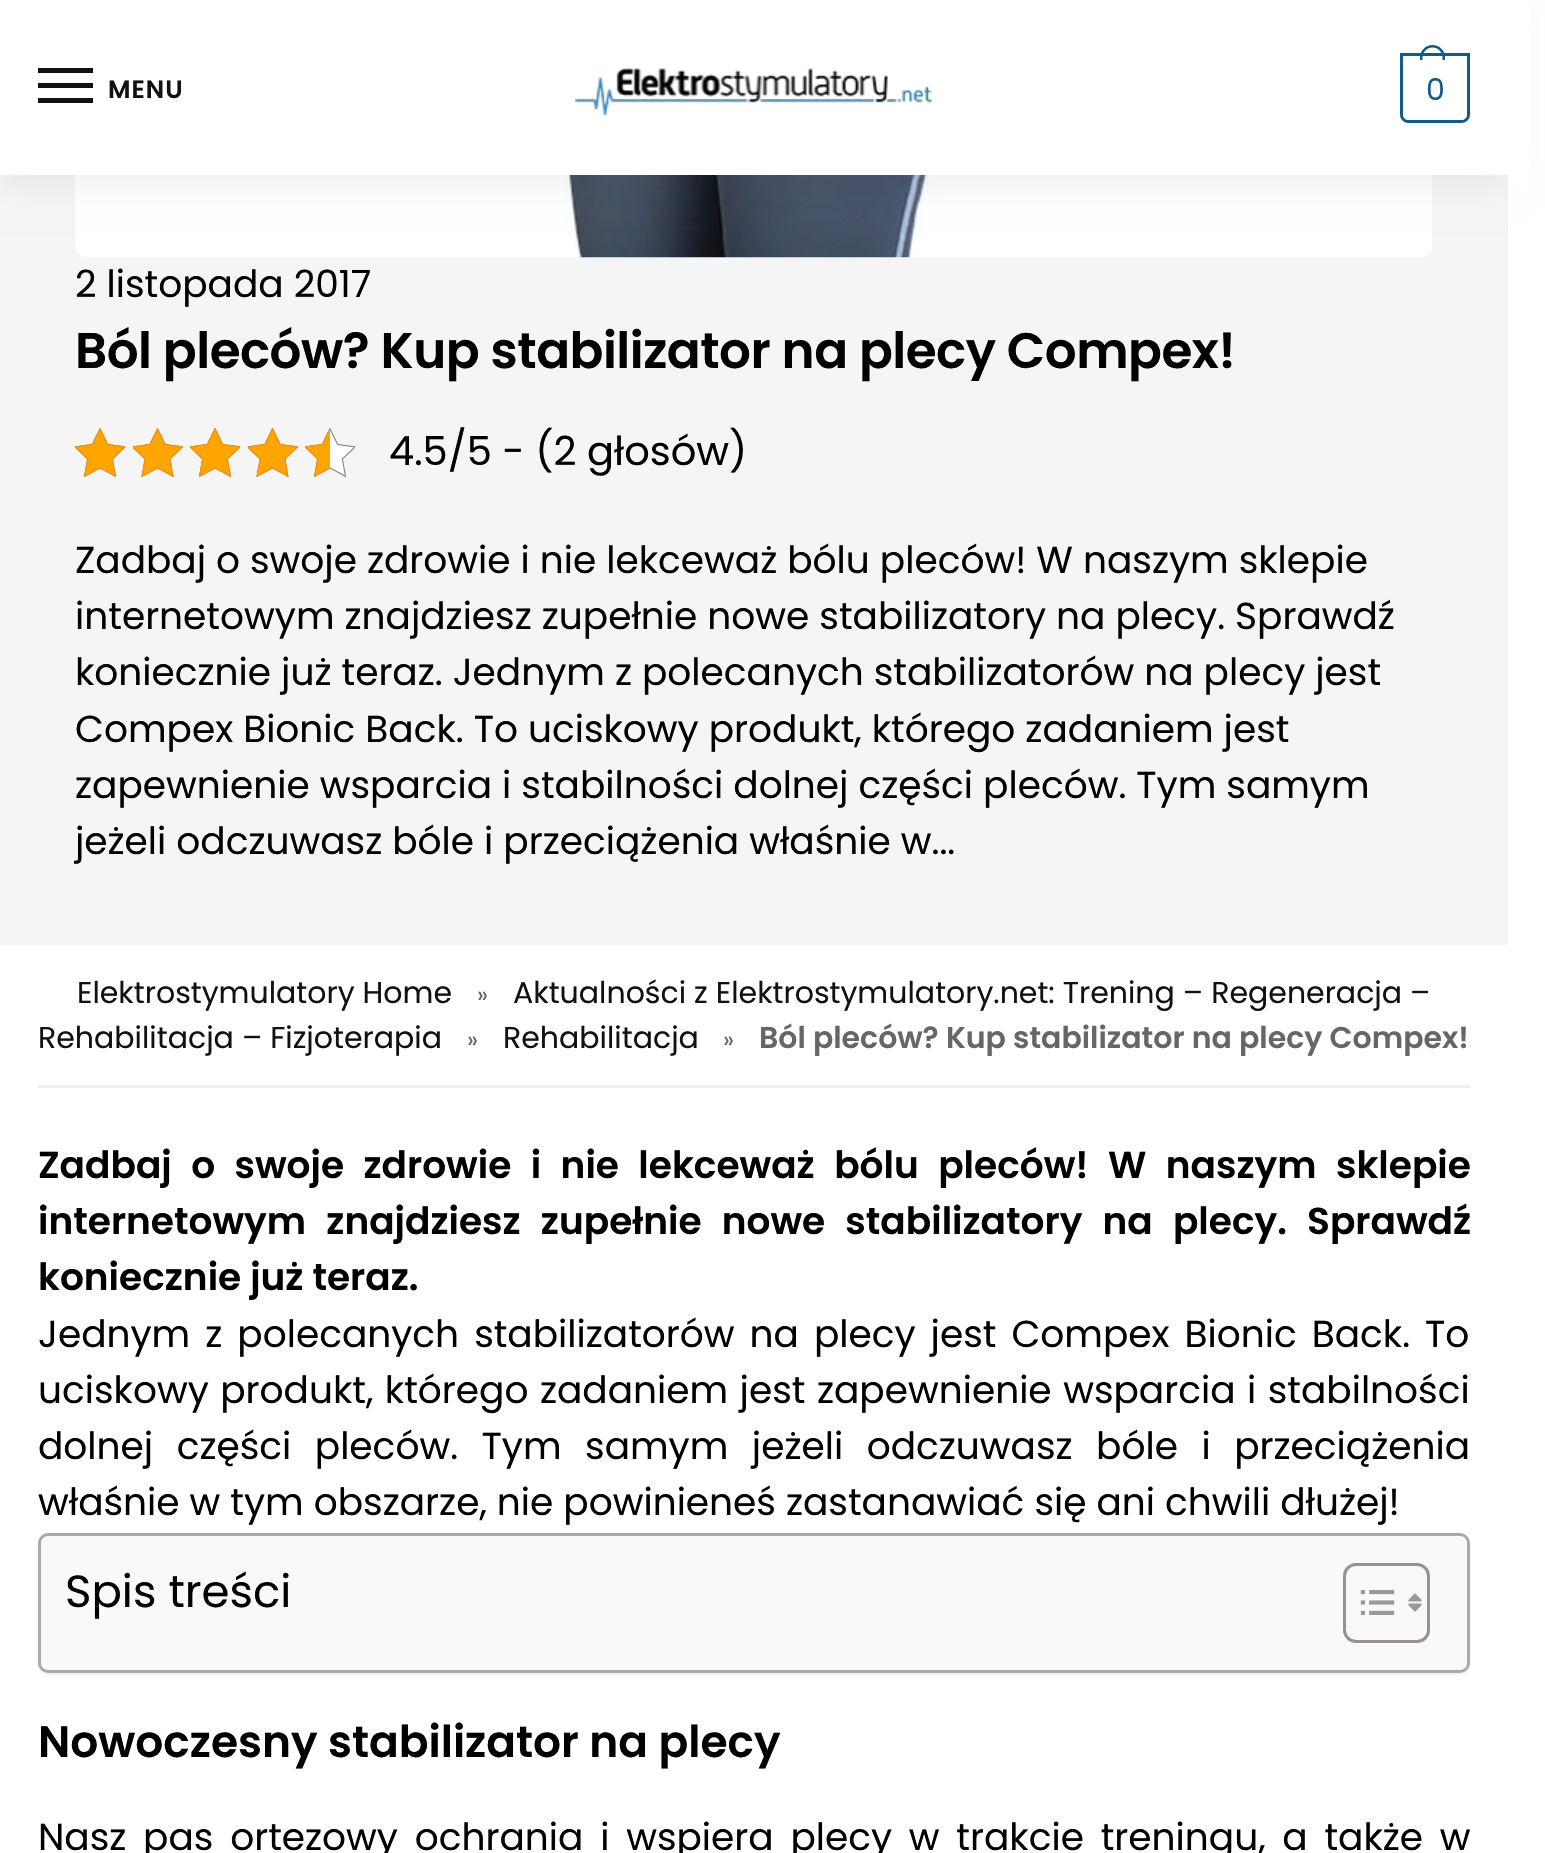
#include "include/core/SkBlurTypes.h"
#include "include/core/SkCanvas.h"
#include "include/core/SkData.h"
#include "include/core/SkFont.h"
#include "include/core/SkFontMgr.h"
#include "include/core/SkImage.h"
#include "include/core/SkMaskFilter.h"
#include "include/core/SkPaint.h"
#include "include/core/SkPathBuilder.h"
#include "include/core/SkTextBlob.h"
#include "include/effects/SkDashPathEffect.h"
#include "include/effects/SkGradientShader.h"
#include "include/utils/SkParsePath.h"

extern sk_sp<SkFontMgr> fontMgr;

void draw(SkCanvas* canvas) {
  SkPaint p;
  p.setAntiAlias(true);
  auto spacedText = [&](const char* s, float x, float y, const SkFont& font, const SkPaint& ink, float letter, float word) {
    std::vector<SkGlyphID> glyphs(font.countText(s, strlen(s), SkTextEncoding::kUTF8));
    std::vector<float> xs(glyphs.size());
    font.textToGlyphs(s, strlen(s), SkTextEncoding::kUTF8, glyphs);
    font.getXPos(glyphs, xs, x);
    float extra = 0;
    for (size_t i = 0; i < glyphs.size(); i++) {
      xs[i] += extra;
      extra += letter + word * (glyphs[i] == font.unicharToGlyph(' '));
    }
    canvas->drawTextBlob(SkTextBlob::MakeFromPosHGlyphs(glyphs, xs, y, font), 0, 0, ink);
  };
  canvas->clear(SK_ColorWHITE);
  p.setColor(SkColorSetRGB(245, 245, 245));
  canvas->drawRect(SkRect::MakeLTRB(0, 175, 1508, 945), p);
  canvas->drawImageRect(SkImages::DeferredFromEncodedData(SkData::MakeFromFileName("images/2.png")), SkRect::MakeLTRB(75, 175, 1432, 258), SkSamplingOptions());
  p.setColor(SkColorSetARGB(20, 0, 0, 0));
  p.setMaskFilter(SkMaskFilter::MakeBlur(kNormal_SkBlurStyle, 19));
  canvas->drawRect(SkRect::MakeLTRB(0, 3, 1508, 178), p);
  p.setMaskFilter(nullptr);
  p.setColor(SK_ColorWHITE);
  canvas->drawRect(SkRect::MakeLTRB(0, 0, 1508, 175), p);
  p.setColor(SkColorSetRGB(17, 17, 17));
  canvas->drawRect(SkRect::MakeLTRB(38, 68, 93, 73), p);
  canvas->drawRect(SkRect::MakeLTRB(38, 83, 93, 88), p);
  canvas->drawRect(SkRect::MakeLTRB(38, 98, 93, 103), p);
  canvas->drawImageRect(SkImages::DeferredFromEncodedData(SkData::MakeFromFileName("images/1.png")), SkRect::MakeLTRB(575, 68, 932, 115), SkSamplingOptions());
  p.setStyle(SkPaint::kStroke_Style);
  p.setStrokeWidth(3);
  p.setColor(SkColorSetRGB(16, 91, 137));
  canvas->drawPath(SkPathBuilder().moveTo(1401.5f, 54.5f).lineTo(1468.5f, 54.5f).lineTo(1468.5f, 115).cubicTo(1468.5f, 118.5f, 1465.5f, 121.5f, 1462, 121.5f).lineTo(1408, 121.5f).cubicTo(1404.5f, 121.5f, 1401.5f, 118.5f, 1401.5f, 115).close().detach(), p);
  p.setStyle(SkPaint::kFill_Style);
  canvas->drawPath(SkPathBuilder(SkPathFillType::kEvenOdd).moveTo(1432.5f, 45).cubicTo(1439.5f, 45, 1445, 50.5f, 1445, 57.5f).lineTo(1445, 60).lineTo(1420, 60).lineTo(1420, 57.5f).cubicTo(1420, 50.5f, 1425.5f, 45, 1432.5f, 45).close().moveTo(1432.5f, 47.5f).cubicTo(1438, 47.5f, 1442.5f, 52, 1442.5f, 57.5f).lineTo(1442.5f, 60).lineTo(1422.5f, 60).lineTo(1422.5f, 57.5f).cubicTo(1422.5f, 52, 1427, 47.5f, 1432.5f, 47.5f).close().detach(), p);
  p.setColor(SK_ColorWHITE);
  canvas->drawRect(SkRect::MakeLTRB(1508, 0, 1530, 190), p);
  canvas->drawImageRect(SkImages::DeferredFromEncodedData(SkData::MakeFromFileName("images/3.png")), SkRect::MakeLTRB(75, 428, 125, 477), SkSamplingOptions());
  canvas->drawImageRect(SkImages::DeferredFromEncodedData(SkData::MakeFromFileName("images/4.png")), SkRect::MakeLTRB(133, 428, 183, 478), SkSamplingOptions());
  canvas->drawImageRect(SkImages::DeferredFromEncodedData(SkData::MakeFromFileName("images/3.png")), SkRect::MakeLTRB(190, 428, 240, 477), SkSamplingOptions());
  canvas->drawImageRect(SkImages::DeferredFromEncodedData(SkData::MakeFromFileName("images/4.png")), SkRect::MakeLTRB(248, 428, 298, 478), SkSamplingOptions());
  canvas->drawImageRect(SkImages::DeferredFromEncodedData(SkData::MakeFromFileName("images/3.png")), SkRect::MakeLTRB(305, 428, 355, 477), SkSamplingOptions());
  canvas->drawImageRect(SkImages::DeferredFromEncodedData(SkData::MakeFromFileName("images/5.png")), SkRect::MakeLTRB(75, 428, 125, 477), SkSamplingOptions());
  canvas->drawImageRect(SkImages::DeferredFromEncodedData(SkData::MakeFromFileName("images/6.png")), SkRect::MakeLTRB(133, 428, 183, 478), SkSamplingOptions());
  canvas->drawImageRect(SkImages::DeferredFromEncodedData(SkData::MakeFromFileName("images/5.png")), SkRect::MakeLTRB(190, 428, 240, 477), SkSamplingOptions());
  canvas->drawImageRect(SkImages::DeferredFromEncodedData(SkData::MakeFromFileName("images/6.png")), SkRect::MakeLTRB(248, 428, 298, 478), SkSamplingOptions());
  canvas->drawImageRect(SkImages::DeferredFromEncodedData(SkData::MakeFromFileName("images/7.png")), SkRect::MakeLTRB(305, 428, 330, 477), SkSamplingOptions());
  p.setColor(SkColorSetRGB(238, 238, 238));
  canvas->drawRect(SkRect::MakeLTRB(38, 1085, 1470, 1088), p);
  p.setColor(SkColorSetARGB(13, 0, 0, 0));
  p.setMaskFilter(SkMaskFilter::MakeBlur(kNormal_SkBlurStyle, 1));
  canvas->drawRoundRect(SkRect::MakeLTRB(38, 1535, 1470, 1675), 10, 10, p);
  p.setMaskFilter(nullptr);
  p.setColor(SkColorSetRGB(249, 249, 249));
  canvas->drawRoundRect(SkRect::MakeLTRB(39.5f, 1534.5f, 1468.5f, 1671.5f), 8.5f, 8.5f, p);
  p.setStyle(SkPaint::kStroke_Style);
  p.setColor(SkColorSetRGB(170, 170, 170));
  canvas->drawRoundRect(SkRect::MakeLTRB(39.5f, 1534.5f, 1468.5f, 1671.5f), 8.5f, 8.5f, p);
  p.setColor(SkColorSetRGB(153, 145, 145));
  canvas->drawRoundRect(SkRect::MakeLTRB(1344.5f, 1564.5f, 1428.5f, 1641.5f), 11.5f, 11.5f, p);
  canvas->drawImageRect(SkImages::DeferredFromEncodedData(SkData::MakeFromFileName("images/8.png")), SkRect::MakeLTRB(1360, 1590, 1395, 1615), SkSamplingOptions());
  canvas->drawImageRect(SkImages::DeferredFromEncodedData(SkData::MakeFromFileName("images/9.png")), SkRect::MakeLTRB(1408, 1593, 1422, 1612), SkSamplingOptions());
  SkFont font1(fontMgr->matchFamilyStyle("Poppins", SkFontStyle(600, SkFontStyle::kNormal_Width, SkFontStyle::kUpright_Slant)), 25);
  font1.setSubpixel(true);
  p.setStyle(SkPaint::kFill_Style);
  p.setColor(SkColorSetRGB(17, 17, 17));
  spacedText("MENU", 108, 98, font1, p, 1, 0);
  SkFont font2(fontMgr->matchFamilyStyle("Poppins", SkFontStyle::Normal()), 30);
  font2.setSubpixel(true);
  p.setColor(SkColorSetRGB(16, 91, 137));
  spacedText("0", 1426, 100, font2, p, -2, 0);
  SkFont font3(fontMgr->matchFamilyStyle("Poppins", SkFontStyle::Normal()), 37.5f);
  font3.setSubpixel(true);
  p.setColor(SK_ColorBLACK);
  canvas->drawString("2 listopada 2017", 75, 297, font3, p);
  SkFont font4(fontMgr->matchFamilyStyle("Poppins", SkFontStyle(600, SkFontStyle::kNormal_Width, SkFontStyle::kUpright_Slant)), 50);
  font4.setSubpixel(true);
  spacedText("Ból pleców? Kup stabilizator na plecy Compex!", 75, 368, font4, p, -0.5f, 0);
  SkFont font5(fontMgr->matchFamilyStyle("Poppins", SkFontStyle::Normal()), 40);
  font5.setSubpixel(true);
  canvas->drawString("4.5/5 - (2 głosów)", 389, 465, font5, p);
  canvas->drawString("Zadbaj o swoje zdrowie i nie lekceważ bólu pleców! W naszym sklepie", 75, 573, font3, p);
  canvas->drawString("internetowym znajdziesz zupełnie nowe stabilizatory na plecy. Sprawdź", 75, 629, font3, p);
  canvas->drawString("koniecznie już teraz. Jednym z polecanych stabilizatorów na plecy jest", 75, 685, font3, p);
  canvas->drawString("Compex Bionic Back. To uciskowy produkt, którego zadaniem jest", 75, 742, font3, p);
  canvas->drawString("zapewnienie wsparcia i stabilności dolnej części pleców. Tym samym", 75, 798, font3, p);
  canvas->drawString("jeżeli odczuwasz bóle i przeciążenia właśnie w...", 75, 854, font3, p);
  p.setColor(SkColorSetRGB(17, 17, 17));
  canvas->drawString("Elektrostymulatory Home", 77, 1003, font2, p);
  SkFont font6(fontMgr->matchFamilyStyle("Poppins", SkFontStyle::Normal()), 24);
  font6.setSubpixel(true);
  p.setColor(SkColorSetRGB(102, 102, 102));
  canvas->drawString("»", 477, 1003, font6, p);
  p.setColor(SkColorSetRGB(17, 17, 17));
  canvas->drawString("Aktualności z Elektrostymulatory.net: Trening – Regeneracja –", 513, 1003, font2, p);
  canvas->drawString("Rehabilitacja – Fizjoterapia", 38, 1048, font2, p);
  p.setColor(SkColorSetRGB(102, 102, 102));
  canvas->drawString("»", 467, 1048, font6, p);
  p.setColor(SkColorSetRGB(17, 17, 17));
  canvas->drawString("Rehabilitacja", 503, 1048, font2, p);
  p.setColor(SkColorSetRGB(102, 102, 102));
  canvas->drawString("»", 723, 1048, font6, p);
  SkFont font7(fontMgr->matchFamilyStyle("Poppins", SkFontStyle(600, SkFontStyle::kNormal_Width, SkFontStyle::kUpright_Slant)), 30);
  font7.setSubpixel(true);
  canvas->drawString("Ból pleców? Kup stabilizator na plecy Compex!", 759, 1048, font7, p);
  SkFont font8(fontMgr->matchFamilyStyle("Poppins", SkFontStyle(600, SkFontStyle::kNormal_Width, SkFontStyle::kUpright_Slant)), 37.5f);
  font8.setSubpixel(true);
  p.setColor(SK_ColorBLACK);
  spacedText("Zadbaj o swoje zdrowie i nie lekceważ bólu pleców! W naszym sklepie", 38, 1178, font8, p, 0, 10.5f);
  spacedText("internetowym znajdziesz zupełnie nowe stabilizatory na plecy. Sprawdź", 38, 1234, font8, p, 0, 11.25f);
  canvas->drawString("koniecznie już teraz.", 38, 1290, font8, p);
  spacedText("Jednym z polecanych stabilizatorów na plecy jest Compex Bionic Back. To", 38, 1347, font3, p, 0, 5);
  spacedText("uciskowy produkt, którego zadaniem jest zapewnienie wsparcia i stabilności", 38, 1403, font3, p, 0, 1.5f);
  spacedText("dolnej części pleców. Tym samym jeżeli odczuwasz bóle i przeciążenia", 38, 1459, font3, p, 0, 13.5f);
  canvas->drawString("właśnie w tym obszarze, nie powinieneś zastanawiać się ani chwili dłużej!", 38, 1515, font3, p);
  SkFont font9(fontMgr->matchFamilyStyle("Poppins", SkFontStyle::Normal()), 45);
  font9.setSubpixel(true);
  canvas->drawString("Spis treści", 65, 1607, font9, p);
  SkFont font10(fontMgr->matchFamilyStyle("Poppins", SkFontStyle(600, SkFontStyle::kNormal_Width, SkFontStyle::kUpright_Slant)), 43.9f);
  font10.setSubpixel(true);
  canvas->drawString("Nowoczesny stabilizator na plecy", 38, 1757, font10, p);
  spacedText("Nasz pas ortezowy ochrania i wspiera plecy w trakcie treningu, a także w", 38, 1850, font3, p, 0, 6.75f);
}
